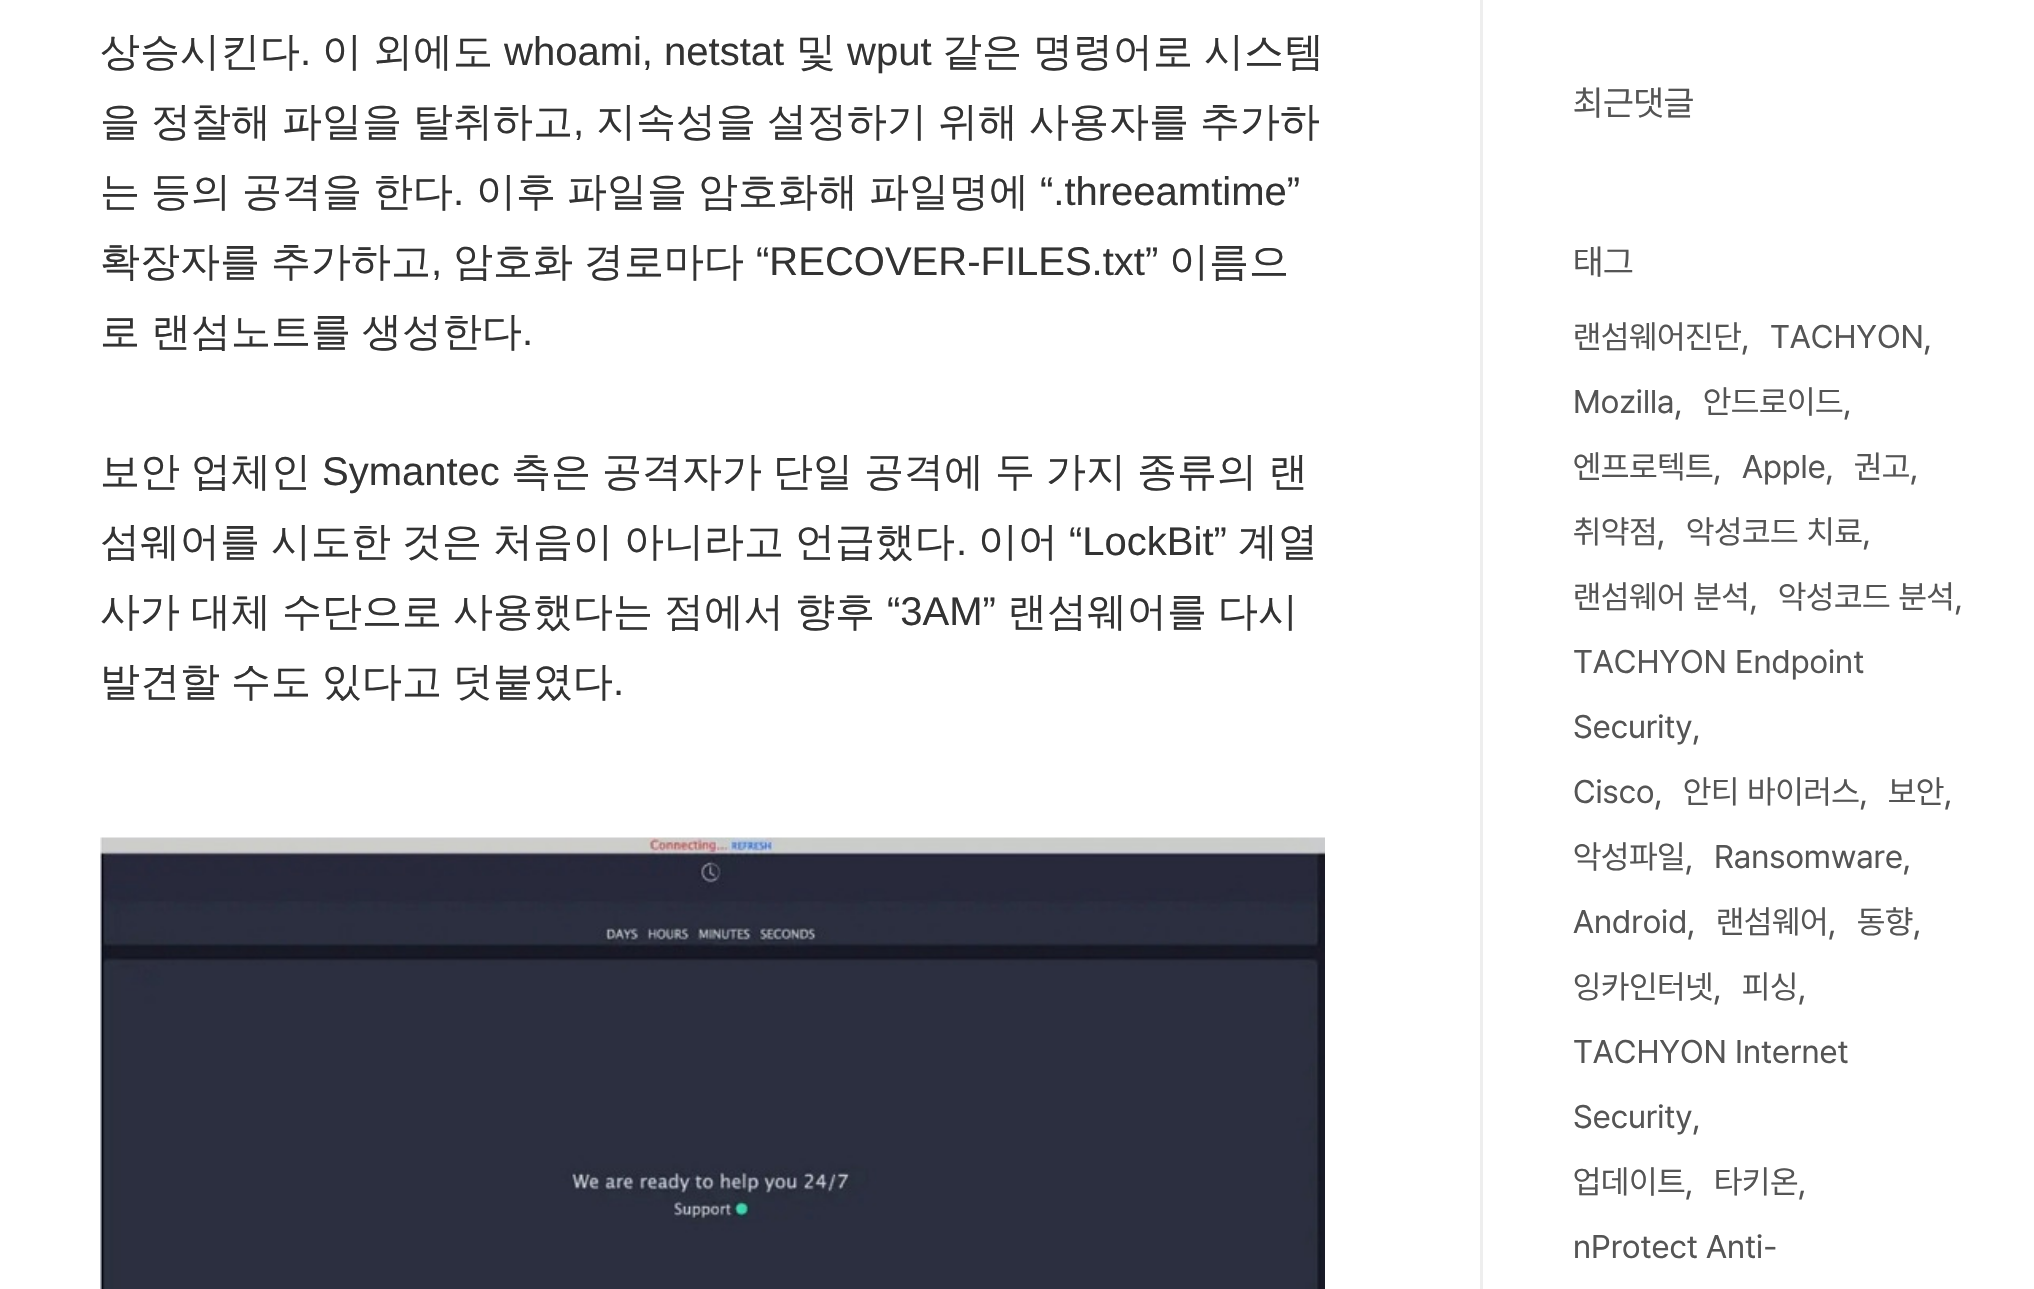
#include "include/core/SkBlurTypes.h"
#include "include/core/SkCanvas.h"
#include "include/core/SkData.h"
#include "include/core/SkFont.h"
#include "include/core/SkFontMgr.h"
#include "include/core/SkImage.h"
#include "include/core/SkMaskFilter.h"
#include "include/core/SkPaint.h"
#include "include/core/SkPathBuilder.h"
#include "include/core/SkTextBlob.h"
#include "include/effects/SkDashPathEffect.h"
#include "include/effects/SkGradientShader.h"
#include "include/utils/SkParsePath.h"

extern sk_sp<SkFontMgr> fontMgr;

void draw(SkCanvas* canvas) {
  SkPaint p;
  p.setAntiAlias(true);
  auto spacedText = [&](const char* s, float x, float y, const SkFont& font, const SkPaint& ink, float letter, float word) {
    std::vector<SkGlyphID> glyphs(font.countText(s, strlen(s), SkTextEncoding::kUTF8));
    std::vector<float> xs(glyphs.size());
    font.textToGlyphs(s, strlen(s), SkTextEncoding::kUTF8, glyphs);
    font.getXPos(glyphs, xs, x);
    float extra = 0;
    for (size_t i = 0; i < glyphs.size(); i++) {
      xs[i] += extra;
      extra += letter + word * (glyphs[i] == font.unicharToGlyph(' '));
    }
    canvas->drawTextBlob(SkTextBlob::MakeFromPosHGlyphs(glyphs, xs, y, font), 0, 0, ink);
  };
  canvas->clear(SK_ColorWHITE);
  canvas->drawImageRect(SkImages::DeferredFromEncodedData(SkData::MakeFromFileName("images/1.png")), SkRect::MakeLTRB(100, 837, 1325, 1289), SkSamplingOptions());
  p.setColor(SkColorSetRGB(238, 238, 238));
  canvas->drawRect(SkRect::MakeLTRB(1480, 0, 1483, 1289), p);
  SkFont font1(fontMgr->matchFamilyStyle("WenQuanYi Zen Hei", SkFontStyle(500, SkFontStyle::kNormal_Width, SkFontStyle::kUpright_Slant)), 40);
  font1.setSubpixel(true);
  p.setColor(SkColorSetRGB(51, 51, 51));
  canvas->drawString("상승시킨다", 100, 65, font1, p);
  SkFont font2(fontMgr->matchFamilyStyle("Liberation Sans", SkFontStyle::Normal()), 40);
  font2.setSubpixel(true);
  canvas->drawString(".", 300, 65, font2, p);
  spacedText("이 외에도", 322, 65, font1, p, 0, -1);
  canvas->drawString("whoami, netstat", 504, 65, font2, p);
  canvas->drawString("및", 796, 65, font1, p);
  canvas->drawString("wput", 847, 65, font2, p);
  spacedText("같은 명령어로 시스템", 942, 65, font1, p, 0, -1);
  spacedText("을 정찰해 파일을 탈취하고", 100, 135, font1, p, 0, -1);
  canvas->drawString(",", 573, 135, font2, p);
  spacedText("지속성을 설정하기 위해 사용자를 추가하", 596, 135, font1, p, 0, -1);
  spacedText("는 등의 공격을 한다", 100, 205, font1, p, 0, -1);
  canvas->drawString(".", 453, 205, font2, p);
  spacedText("이후 파일을 암호화해 파일명에", 476, 205, font1, p, 0, -1);
  canvas->drawString("“.threeamtime”", 1040, 205, font2, p);
  spacedText("확장자를 추가하고", 100, 275, font1, p, 0, -1);
  canvas->drawString(",", 431, 275, font2, p);
  spacedText("암호화 경로마다", 453, 275, font1, p, 0, -1);
  canvas->drawString("“RECOVER-FILES.txt”", 756, 275, font2, p);
  canvas->drawString("이름으", 1169, 275, font1, p);
  spacedText("로 랜섬노트를 생성한다", 100, 345, font1, p, 0, -1);
  canvas->drawString(".", 522, 345, font2, p);
  spacedText("보안 업체인", 100, 485, font1, p, 0, -1);
  canvas->drawString("Symantec", 322, 485, font2, p);
  spacedText("측은 공격자가 단일 공격에 두 가지 종류의 랜", 511, 485, font1, p, 0, -1);
  spacedText("섬웨어를 시도한 것은 처음이 아니라고 언급했다", 100, 555, font1, p, 0, -1);
  canvas->drawString(".", 956, 555, font2, p);
  canvas->drawString("이어", 978, 555, font1, p);
  canvas->drawString("“LockBit”", 1069, 555, font2, p);
  canvas->drawString("계열", 1238, 555, font1, p);
  spacedText("사가 대체 수단으로 사용했다는 점에서 향후", 100, 625, font1, p, 0, -1);
  canvas->drawString("“3AM”", 887, 625, font2, p);
  spacedText("랜섬웨어를 다시", 1007, 625, font1, p, 0, -1);
  spacedText("발견할 수도 있다고 덧붙였다", 100, 695, font1, p, 0, -1);
  canvas->drawString(".", 613, 695, font2, p);
  SkFont font3(fontMgr->matchFamilyStyle("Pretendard", SkFontStyle::Normal()), 35);
  font3.setSubpixel(true);
  p.setColor(SkColorSetRGB(85, 85, 85));
  canvas->drawString("최근댓글", 1573, 115, font3, p);
  canvas->drawString("태그", 1573, 274, font3, p);
  SkFont font4(fontMgr->matchFamilyStyle("Pretendard", SkFontStyle::Normal()), 32.5f);
  font4.setSubpixel(true);
  canvas->drawString("랜섬웨어진단,", 1573, 348, font4, p);
  canvas->drawString("TACHYON,", 1770, 348, font4, p);
  canvas->drawString("Mozilla,", 1573, 413, font4, p);
  canvas->drawString("안드로이드,", 1703, 413, font4, p);
  canvas->drawString("엔프로텍트,", 1573, 478, font4, p);
  canvas->drawString("Apple,", 1742, 478, font4, p);
  canvas->drawString("권고,", 1854, 478, font4, p);
  canvas->drawString("취약점,", 1573, 543, font4, p);
  canvas->drawString("악성코드 치료,", 1686, 543, font4, p);
  canvas->drawString("랜섬웨어 분석,", 1573, 608, font4, p);
  canvas->drawString("악성코드 분석,", 1778, 608, font4, p);
  canvas->drawString("TACHYON Endpoint", 1573, 673, font4, p);
  canvas->drawString("Security,", 1573, 738, font4, p);
  canvas->drawString("Cisco,", 1573, 803, font4, p);
  canvas->drawString("안티 바이러스,", 1683, 803, font4, p);
  canvas->drawString("보안,", 1888, 803, font4, p);
  canvas->drawString("악성파일,", 1573, 868, font4, p);
  canvas->drawString("Ransomware,", 1714, 868, font4, p);
  canvas->drawString("Android,", 1573, 933, font4, p);
  canvas->drawString("랜섬웨어,", 1716, 933, font4, p);
  canvas->drawString("동향,", 1857, 933, font4, p);
  canvas->drawString("잉카인터넷,", 1573, 998, font4, p);
  canvas->drawString("피싱,", 1742, 998, font4, p);
  canvas->drawString("TACHYON Internet", 1573, 1063, font4, p);
  canvas->drawString("Security,", 1573, 1128, font4, p);
  canvas->drawString("업데이트,", 1573, 1193, font4, p);
  canvas->drawString("타키온,", 1714, 1193, font4, p);
  canvas->drawString("nProtect Anti-", 1573, 1258, font4, p);
}
